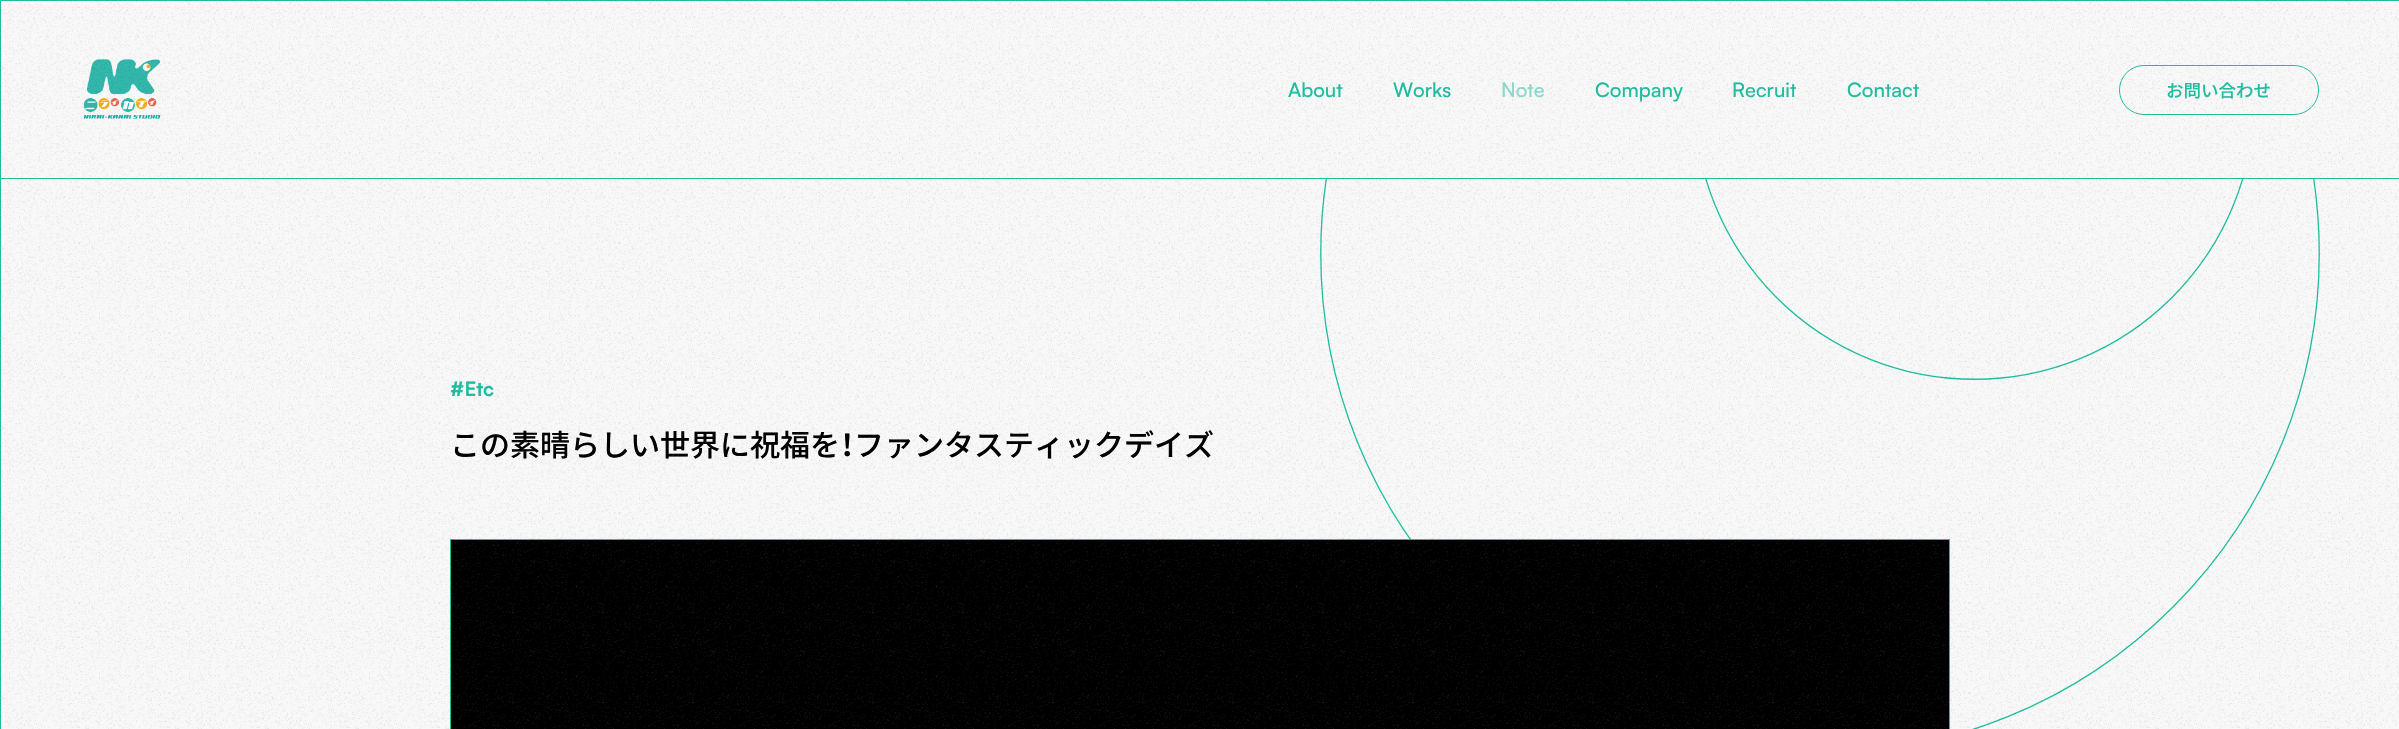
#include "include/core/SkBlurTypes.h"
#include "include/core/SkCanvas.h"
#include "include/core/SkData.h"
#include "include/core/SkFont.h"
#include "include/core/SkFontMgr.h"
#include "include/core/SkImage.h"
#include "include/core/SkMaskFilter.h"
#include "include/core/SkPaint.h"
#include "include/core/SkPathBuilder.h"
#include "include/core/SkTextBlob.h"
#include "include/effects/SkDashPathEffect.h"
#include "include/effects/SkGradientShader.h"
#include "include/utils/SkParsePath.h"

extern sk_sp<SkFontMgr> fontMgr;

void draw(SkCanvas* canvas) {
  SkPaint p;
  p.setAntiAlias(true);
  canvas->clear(SkColorSetRGB(248, 248, 248));
  p.setStyle(SkPaint::kStroke_Style);
  p.setStrokeWidth(1);
  p.setColor(SkColorSetRGB(30, 190, 160));
  canvas->drawRect(SkRect::MakeLTRB(0.5f, 0.5f, 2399.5f, 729.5f), p);
  p.setStyle(SkPaint::kFill_Style);
  canvas->drawRect(SkRect::MakeLTRB(1, 178, 2399, 179), p);
  canvas->drawImageRect(SkImages::DeferredFromEncodedData(SkData::MakeFromFileName("images/2.png")), SkRect::MakeLTRB(83, 59, 161, 119), SkSamplingOptions());
  p.setStyle(SkPaint::kStroke_Style);
  canvas->drawRoundRect(SkRect::MakeLTRB(2119.5f, 65.5f, 2318.5f, 114.5f), 24.5f, 24.5f, p);
  canvas->save();
  canvas->clipRect(SkRect::MakeLTRB(1, 179, 2399, 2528));
  p.setStrokeWidth(1.3f);
  canvas->drawPath(SkPathBuilder().moveTo(2173, 607).cubicTo(1978, 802, 1662, 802, 1467, 607).cubicTo(1272, 412, 1272, 95.5f, 1467, -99.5f).cubicTo(1662, -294.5f, 1978, -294.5f, 2173, -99.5f).cubicTo(2368, 95.5f, 2368, 412, 2173, 607).close().detach(), p);
  canvas->restore();
  p.setStyle(SkPaint::kFill_Style);
  p.setColor(SK_ColorBLACK);
  canvas->drawRect(SkRect::MakeLTRB(450.5f, 539.5f, 1949.5f, 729.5f), p);
  p.setStyle(SkPaint::kStroke_Style);
  p.setStrokeWidth(1);
  p.setColor(SkColorSetRGB(30, 190, 160));
  canvas->drawRect(SkRect::MakeLTRB(450.5f, 539.5f, 1949.5f, 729.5f), p);
  canvas->save();
  canvas->clipRect(SkRect::MakeLTRB(1, 179, 2399, 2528));
  p.setStrokeWidth(1.3f);
  canvas->drawPath(SkPathBuilder().moveTo(2172, 297.5f).cubicTo(2063, 406.5f, 1885.5f, 406.5f, 1776.5f, 297.5f).cubicTo(1667, 188, 1667, 11, 1776.5f, -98.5f).cubicTo(1885.5f, -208, 2063, -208, 2172, -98.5f).cubicTo(2281.5f, 11, 2281.5f, 188, 2172, 297.5f).close().detach(), p);
  canvas->restore();
  SkFont font1(fontMgr->matchFamilyStyle("Satoshi", SkFontStyle(500, SkFontStyle::kNormal_Width, SkFontStyle::kUpright_Slant)), 20);
  font1.setSubpixel(true);
  p.setStyle(SkPaint::kFill_Style);
  canvas->drawString("About", 1288, 97, font1, p);
  canvas->drawString("Works", 1393, 97, font1, p);
  p.setColor(SkColorSetRGB(139, 219, 204));
  canvas->drawString("Note", 1501, 97, font1, p);
  p.setColor(SkColorSetRGB(30, 190, 160));
  canvas->drawString("Company", 1595, 97, font1, p);
  canvas->drawString("Recruit", 1732, 97, font1, p);
  canvas->drawString("Contact", 1847, 97, font1, p);
  SkFont font2(fontMgr->matchFamilyStyle("Noto Sans JP", SkFontStyle(500, SkFontStyle::kNormal_Width, SkFontStyle::kUpright_Slant)), 17.5f);
  font2.setSubpixel(true);
  canvas->drawString("お問い合わせ", 2166, 97, font2, p);
  SkFont font3(fontMgr->matchFamilyStyle("Satoshi", SkFontStyle::Bold()), 20);
  font3.setSubpixel(true);
  canvas->drawString("#Etc", 450, 396, font3, p);
  SkFont font4(fontMgr->matchFamilyStyle("Noto Sans JP", SkFontStyle(500, SkFontStyle::kNormal_Width, SkFontStyle::kUpright_Slant)), 30);
  font4.setSubpixel(true);
  p.setColor(SK_ColorBLACK);
  canvas->drawString("この素晴らしい世界に祝福を", 450, 456, font4, p);
  SkFont font5(fontMgr->matchFamilyStyle("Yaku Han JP", SkFontStyle(500, SkFontStyle::kNormal_Width, SkFontStyle::kUpright_Slant)), 30);
  font5.setSubpixel(true);
  canvas->drawString("！", 840, 456, font5, p);
  canvas->drawString("ファンタスティックデイズ", 854, 456, font4, p);
  canvas->drawImageRect(SkImages::DeferredFromEncodedData(SkData::MakeFromFileName("images/1.png")), SkRect::MakeLTRB(0, 0, 2399, 729), SkSamplingOptions());
}
